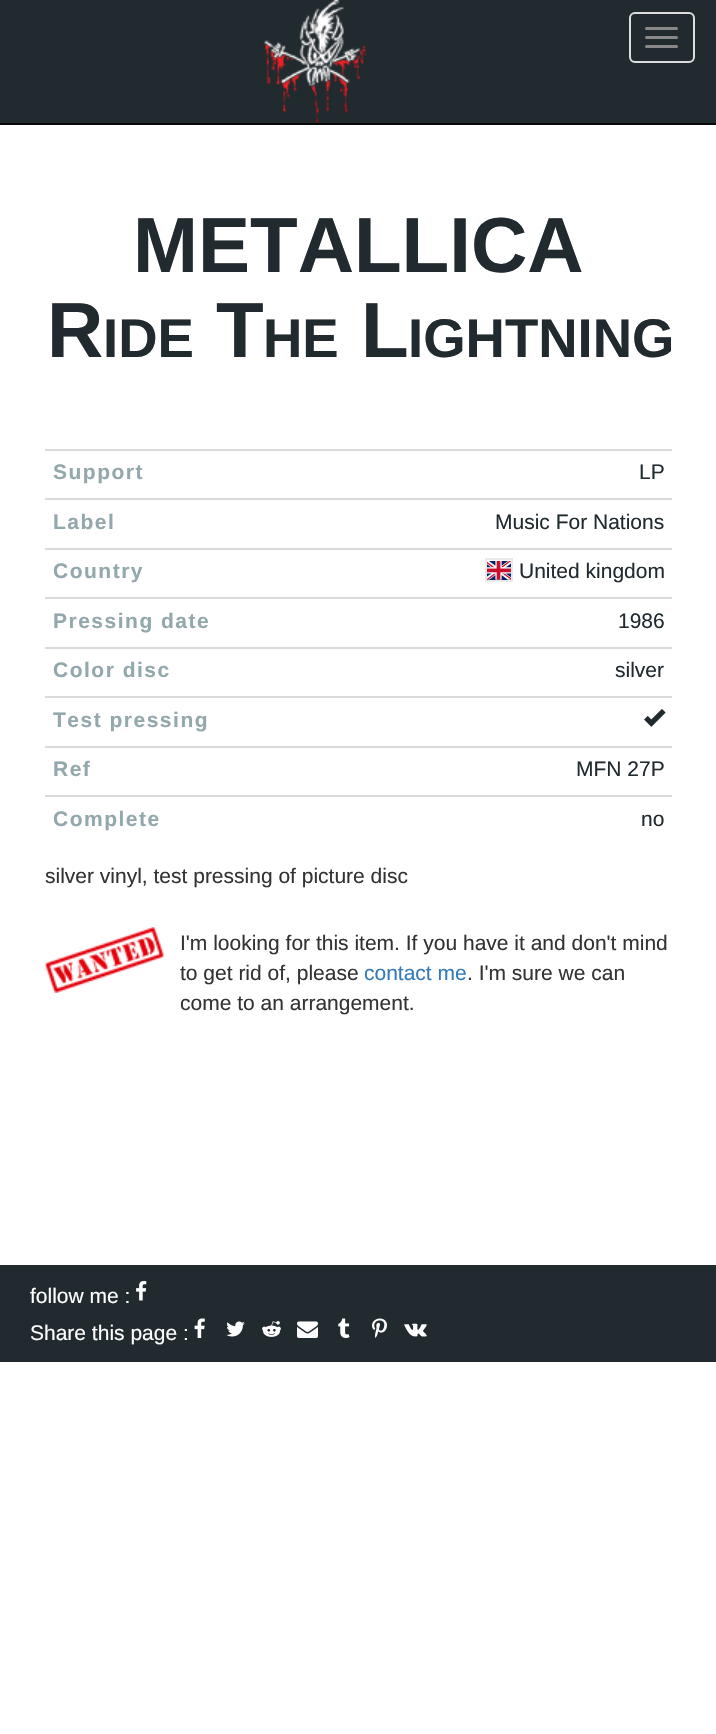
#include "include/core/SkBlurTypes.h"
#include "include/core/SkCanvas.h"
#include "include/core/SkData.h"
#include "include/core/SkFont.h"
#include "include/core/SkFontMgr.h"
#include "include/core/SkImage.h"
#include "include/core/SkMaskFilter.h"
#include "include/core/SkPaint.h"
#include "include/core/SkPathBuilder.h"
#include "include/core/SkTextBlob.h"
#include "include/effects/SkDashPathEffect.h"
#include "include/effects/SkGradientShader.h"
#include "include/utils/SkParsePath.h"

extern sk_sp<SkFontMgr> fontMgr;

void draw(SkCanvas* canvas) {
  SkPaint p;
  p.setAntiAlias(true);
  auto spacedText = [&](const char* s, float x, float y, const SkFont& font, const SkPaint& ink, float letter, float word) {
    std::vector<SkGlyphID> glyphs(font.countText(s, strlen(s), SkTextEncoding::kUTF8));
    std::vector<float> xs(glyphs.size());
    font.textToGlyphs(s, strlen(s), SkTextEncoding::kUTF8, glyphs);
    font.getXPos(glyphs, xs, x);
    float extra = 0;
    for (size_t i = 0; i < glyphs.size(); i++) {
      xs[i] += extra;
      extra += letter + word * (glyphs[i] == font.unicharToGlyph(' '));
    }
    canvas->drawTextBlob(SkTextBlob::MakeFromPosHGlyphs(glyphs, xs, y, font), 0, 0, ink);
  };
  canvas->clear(SK_ColorWHITE);
  p.setColor(SkColorSetRGB(32, 42, 47));
  canvas->drawRect(SkRect::MakeLTRB(0, 0, 716, 123), p);
  p.setColor(SkColorSetRGB(8, 8, 8));
  canvas->drawRect(SkRect::MakeLTRB(0, 123, 716, 125), p);
  canvas->drawImageRect(SkImages::DeferredFromEncodedData(SkData::MakeFromFileName("images/1.png")), SkRect::MakeLTRB(263, 0, 367, 123), SkSamplingOptions());
  p.setStyle(SkPaint::kStroke_Style);
  p.setStrokeWidth(2);
  p.setColor(SkColorSetRGB(221, 221, 221));
  canvas->drawRoundRect(SkRect::MakeLTRB(630, 13, 694, 62), 5, 5, p);
  p.setStyle(SkPaint::kFill_Style);
  p.setColor(SkColorSetRGB(136, 136, 136));
  canvas->drawRoundRect(SkRect::MakeLTRB(645, 27, 678, 30), 1.5f, 1.5f, p);
  canvas->drawRoundRect(SkRect::MakeLTRB(645, 36, 678, 39), 1.5f, 1.5f, p);
  canvas->drawRoundRect(SkRect::MakeLTRB(645, 45, 678, 48), 1.5f, 1.5f, p);
  p.setColor(SkColorSetRGB(220, 217, 217));
  canvas->drawRect(SkRect::MakeLTRB(45, 449, 672, 451), p);
  canvas->drawRect(SkRect::MakeLTRB(45, 498, 672, 500), p);
  canvas->drawRect(SkRect::MakeLTRB(45, 548, 672, 550), p);
  canvas->drawImageRect(SkImages::DeferredFromEncodedData(SkData::MakeFromFileName("images/2.png")), SkRect::MakeLTRB(487, 561, 511, 580), SkSamplingOptions());
  p.setStyle(SkPaint::kStroke_Style);
  p.setColor(SkColorSetRGB(233, 233, 233));
  canvas->drawRect(SkRect::MakeLTRB(486, 559, 512, 581), p);
  p.setStyle(SkPaint::kFill_Style);
  p.setColor(SkColorSetRGB(220, 217, 217));
  canvas->drawRect(SkRect::MakeLTRB(45, 597, 672, 599), p);
  canvas->drawRect(SkRect::MakeLTRB(45, 647, 672, 649), p);
  canvas->drawRect(SkRect::MakeLTRB(45, 696, 672, 698), p);
  canvas->drawImageRect(SkImages::DeferredFromEncodedData(SkData::MakeFromFileName("images/3.png")), SkRect::MakeLTRB(644, 709, 666, 727), SkSamplingOptions());
  canvas->drawRect(SkRect::MakeLTRB(45, 746, 672, 748), p);
  canvas->drawRect(SkRect::MakeLTRB(45, 795, 672, 797), p);
  canvas->drawImageRect(SkImages::DeferredFromEncodedData(SkData::MakeFromFileName("images/4.png")), SkRect::MakeLTRB(45, 927, 164, 993), SkSamplingOptions());
  p.setColor(SkColorSetRGB(32, 42, 47));
  canvas->drawRect(SkRect::MakeLTRB(0, 1265, 716, 1362), p);
  canvas->drawImageRect(SkImages::DeferredFromEncodedData(SkData::MakeFromFileName("images/5.png")), SkRect::MakeLTRB(136, 1281, 147, 1301), SkSamplingOptions());
  canvas->drawImageRect(SkImages::DeferredFromEncodedData(SkData::MakeFromFileName("images/6.png")), SkRect::MakeLTRB(194, 1318, 205, 1338), SkSamplingOptions());
  canvas->drawImageRect(SkImages::DeferredFromEncodedData(SkData::MakeFromFileName("images/7.png")), SkRect::MakeLTRB(226, 1321, 245, 1337), SkSamplingOptions());
  canvas->drawImageRect(SkImages::DeferredFromEncodedData(SkData::MakeFromFileName("images/8.png")), SkRect::MakeLTRB(262, 1321, 281, 1337), SkSamplingOptions());
  canvas->drawImageRect(SkImages::DeferredFromEncodedData(SkData::MakeFromFileName("images/9.png")), SkRect::MakeLTRB(297, 1321, 318, 1338), SkSamplingOptions());
  canvas->drawImageRect(SkImages::DeferredFromEncodedData(SkData::MakeFromFileName("images/10.png")), SkRect::MakeLTRB(338, 1318, 350, 1338), SkSamplingOptions());
  canvas->drawImageRect(SkImages::DeferredFromEncodedData(SkData::MakeFromFileName("images/11.png")), SkRect::MakeLTRB(372, 1318, 387, 1338), SkSamplingOptions());
  canvas->drawImageRect(SkImages::DeferredFromEncodedData(SkData::MakeFromFileName("images/12.png")), SkRect::MakeLTRB(404, 1323, 427, 1337), SkSamplingOptions());
  SkFont font1(fontMgr->matchFamilyStyle("Liberation Sans", SkFontStyle::Bold()), 78);
  font1.setSubpixel(true);
  canvas->drawString("METALLICA", 133, 272, font1, p);
  canvas->drawString("R", 47, 357, font1, p);
  SkFont font2(fontMgr->matchFamilyStyle("Liberation Sans", SkFontStyle::Bold()), 54.5f);
  font2.setSubpixel(true);
  canvas->drawString("IDE", 103, 357, font2, p);
  canvas->drawString("T", 216, 357, font1, p);
  canvas->drawString("HE", 263, 357, font2, p);
  canvas->drawString("L", 361, 357, font1, p);
  canvas->drawString("IGHTNING", 408, 357, font2, p);
  SkFont font3(fontMgr->matchFamilyStyle("Liberation Sans", SkFontStyle::Bold()), 21);
  font3.setSubpixel(true);
  p.setColor(SkColorSetRGB(147, 168, 172));
  spacedText("Support", 53, 479, font3, p, 1.5f, 0);
  SkFont font4(fontMgr->matchFamilyStyle("Liberation Sans", SkFontStyle::Normal()), 21);
  font4.setSubpixel(true);
  p.setColor(SkColorSetRGB(32, 42, 47));
  canvas->drawString("LP", 639, 479, font4, p);
  p.setColor(SkColorSetRGB(147, 168, 172));
  spacedText("Label", 53, 529, font3, p, 1.5f, 0);
  p.setColor(SkColorSetRGB(32, 42, 47));
  canvas->drawString("Music For Nations", 495, 529, font4, p);
  p.setColor(SkColorSetRGB(147, 168, 172));
  spacedText("Country", 53, 578, font3, p, 1.5f, 0);
  p.setColor(SkColorSetRGB(32, 42, 47));
  canvas->drawString("United kingdom", 519, 578, font4, p);
  p.setColor(SkColorSetRGB(147, 168, 172));
  spacedText("Pressing date", 53, 628, font3, p, 1.5f, 0);
  p.setColor(SkColorSetRGB(32, 42, 47));
  canvas->drawString("1986", 618, 628, font4, p);
  p.setColor(SkColorSetRGB(147, 168, 172));
  spacedText("Color disc", 53, 677, font3, p, 1.5f, 0);
  p.setColor(SkColorSetRGB(32, 42, 47));
  canvas->drawString("silver", 615, 677, font4, p);
  p.setColor(SkColorSetRGB(147, 168, 172));
  spacedText("Test pressing", 53, 727, font3, p, 1.5f, 0);
  spacedText("Ref", 53, 776, font3, p, 1.5f, 0);
  p.setColor(SkColorSetRGB(32, 42, 47));
  canvas->drawString("MFN 27P", 576, 776, font4, p);
  p.setColor(SkColorSetRGB(147, 168, 172));
  spacedText("Complete", 53, 826, font3, p, 1.5f, 0);
  p.setColor(SkColorSetRGB(32, 42, 47));
  canvas->drawString("no", 641, 826, font4, p);
  p.setColor(SkColorSetRGB(51, 51, 51));
  canvas->drawString("silver vinyl, test pressing of picture disc", 45, 883, font4, p);
  canvas->drawString("I'm looking for this item. If you have it and don't mind", 180, 950, font4, p);
  canvas->drawString("to get rid of, please", 180, 980, font4, p);
  p.setColor(SkColorSetRGB(51, 122, 183));
  canvas->drawString("contact me", 364, 980, font4, p);
  p.setColor(SkColorSetRGB(51, 51, 51));
  canvas->drawString(". I'm sure we can", 467, 980, font4, p);
  canvas->drawString("come to an arrangement.", 180, 1010, font4, p);
  p.setColor(SK_ColorWHITE);
  canvas->drawString("follow me :", 30, 1303, font4, p);
  canvas->drawString("Share this page :", 30, 1340, font4, p);
}
